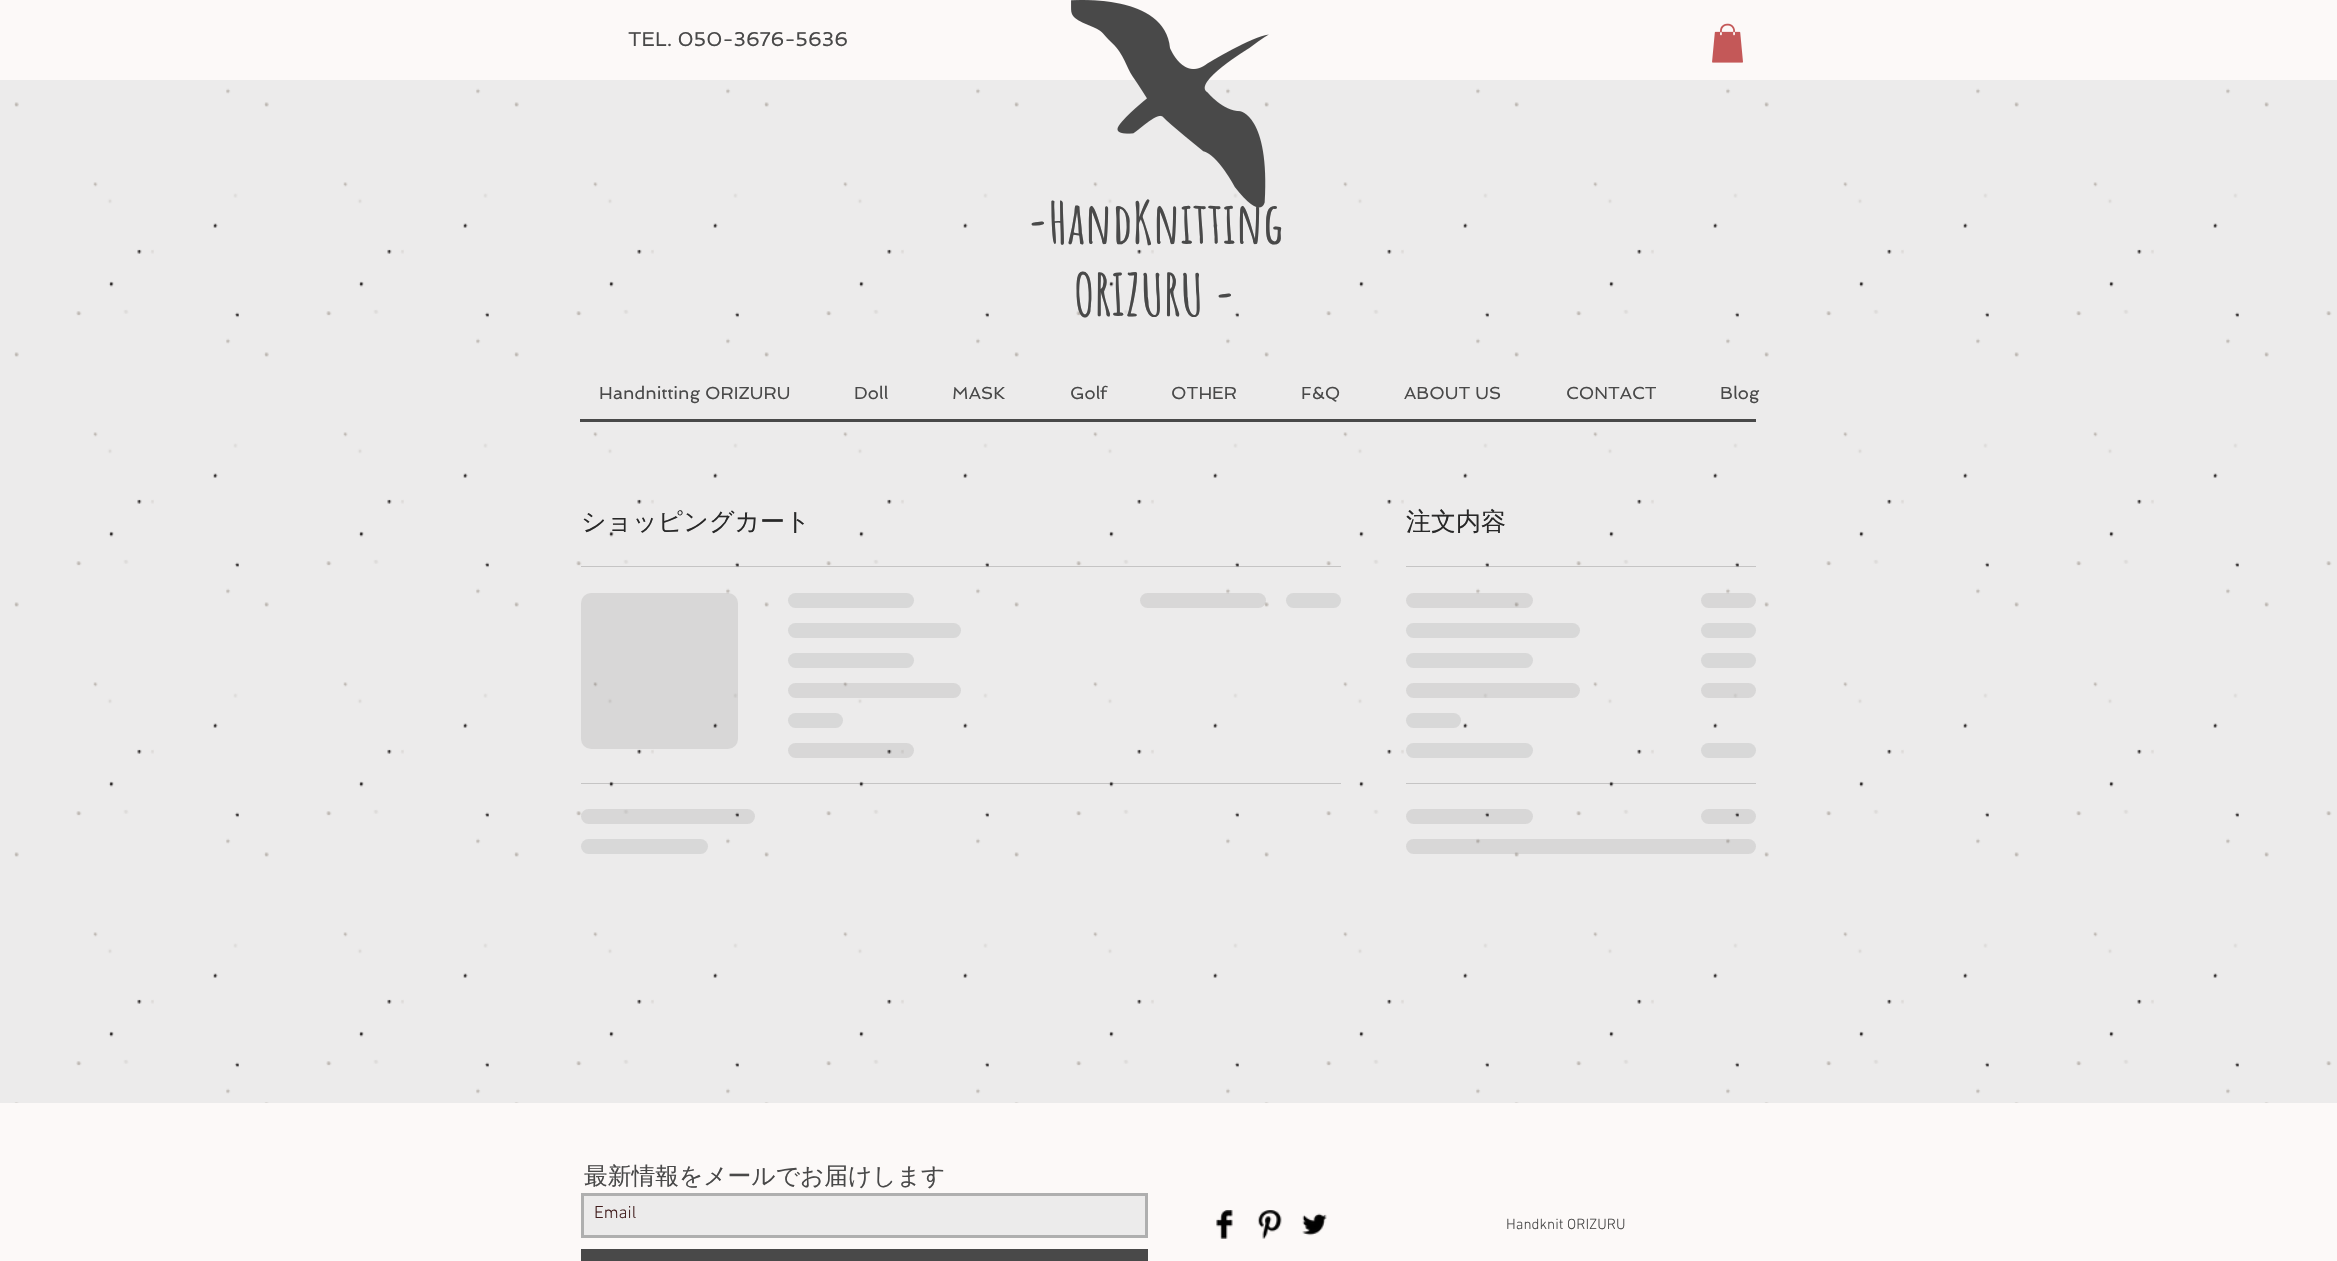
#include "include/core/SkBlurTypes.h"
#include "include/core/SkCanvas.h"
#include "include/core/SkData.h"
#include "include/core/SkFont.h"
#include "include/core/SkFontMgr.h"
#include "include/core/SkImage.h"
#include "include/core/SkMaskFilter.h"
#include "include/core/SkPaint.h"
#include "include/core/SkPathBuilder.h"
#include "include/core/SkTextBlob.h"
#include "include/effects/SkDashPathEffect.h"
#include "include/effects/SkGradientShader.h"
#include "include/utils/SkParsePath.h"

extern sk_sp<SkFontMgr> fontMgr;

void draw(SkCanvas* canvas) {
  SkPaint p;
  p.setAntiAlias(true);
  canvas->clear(SkColorSetRGB(236, 235, 235));
  p.setColor(SkColorSetRGB(252, 249, 248));
  canvas->drawRect(SkRect::MakeLTRB(0, 0, 2337, 80), p);
  canvas->drawImageRect(SkImages::DeferredFromEncodedData(SkData::MakeFromFileName("images/2.png")), SkRect::MakeLTRB(1712, 23, 1743, 63), SkSamplingOptions());
  canvas->drawImageRect(SkImages::DeferredFromEncodedData(SkData::MakeFromFileName("images/6.png")), SkRect::MakeLTRB(14, 88, 2332, 1103), SkSamplingOptions());
  p.setColor(SkColorSetRGB(73, 73, 73));
  canvas->drawRect(SkRect::MakeLTRB(580, 419, 1756, 422), p);
  p.setColor(SkColorSetARGB(51, 40, 40, 40));
  canvas->drawRect(SkRect::MakeLTRB(581, 566, 1341, 567), p);
  {
    const SkColor colors[] = {SkColorSetARGB(26, 40, 40, 40), SkColorSetARGB(51, 40, 40, 40), SkColorSetARGB(26, 40, 40, 40)};
    const float stops[] = {0.25f, 0.37f, 0.63f};
    const SkPoint ends[] = {{581, 671}, {1206, 671}};
    p.setShader(SkGradientShader::MakeLinear(ends, colors, stops, 3, SkTileMode::kClamp));
    p.setAlpha(255);
  }
  canvas->drawRoundRect(SkRect::MakeLTRB(581, 593, 738, 749), 10, 10, p);
  {
    const SkColor colors[] = {SkColorSetRGB(216, 216, 216), SkColorSetRGB(197, 196, 196), SkColorSetRGB(216, 216, 216)};
    const float stops[] = {0.25f, 0.37f, 0.63f};
    const SkPoint ends[] = {{788, 600}, {1293, 600}};
    p.setShader(SkGradientShader::MakeLinear(ends, colors, stops, 3, SkTileMode::kClamp));
    p.setAlpha(255);
  }
  canvas->drawRoundRect(SkRect::MakeLTRB(788, 593, 914, 608), 7.5f, 7.5f, p);
  {
    const SkColor colors[] = {SkColorSetRGB(216, 216, 216), SkColorSetRGB(197, 196, 196), SkColorSetRGB(216, 216, 216)};
    const float stops[] = {0.25f, 0.37f, 0.63f};
    const SkPoint ends[] = {{788, 630}, {1483, 630}};
    p.setShader(SkGradientShader::MakeLinear(ends, colors, stops, 3, SkTileMode::kClamp));
    p.setAlpha(255);
  }
  canvas->drawRoundRect(SkRect::MakeLTRB(788, 623, 961, 638), 7.5f, 7.5f, p);
  {
    const SkColor colors[] = {SkColorSetRGB(216, 216, 216), SkColorSetRGB(197, 196, 196), SkColorSetRGB(216, 216, 216)};
    const float stops[] = {0.25f, 0.37f, 0.63f};
    const SkPoint ends[] = {{788, 660}, {1293, 660}};
    p.setShader(SkGradientShader::MakeLinear(ends, colors, stops, 3, SkTileMode::kClamp));
    p.setAlpha(255);
  }
  canvas->drawRoundRect(SkRect::MakeLTRB(788, 653, 914, 668), 7.5f, 7.5f, p);
  {
    const SkColor colors[] = {SkColorSetARGB(26, 40, 40, 40), SkColorSetARGB(51, 40, 40, 40), SkColorSetARGB(26, 40, 40, 40)};
    const float stops[] = {0.25f, 0.37f, 0.63f};
    const SkPoint ends[] = {{788, 690}, {1483, 690}};
    p.setShader(SkGradientShader::MakeLinear(ends, colors, stops, 3, SkTileMode::kClamp));
    p.setAlpha(255);
  }
  canvas->drawRoundRect(SkRect::MakeLTRB(788, 683, 961, 698), 7.5f, 7.5f, p);
  {
    const SkColor colors[] = {SkColorSetRGB(216, 216, 216), SkColorSetRGB(197, 196, 196), SkColorSetRGB(216, 216, 216)};
    const float stops[] = {0.25f, 0.37f, 0.63f};
    const SkPoint ends[] = {{788, 720}, {1008, 720}};
    p.setShader(SkGradientShader::MakeLinear(ends, colors, stops, 3, SkTileMode::kClamp));
    p.setAlpha(255);
  }
  canvas->drawRoundRect(SkRect::MakeLTRB(788, 713, 843, 728), 7.5f, 7.5f, p);
  {
    const SkColor colors[] = {SkColorSetARGB(26, 40, 40, 40), SkColorSetARGB(51, 40, 40, 40), SkColorSetARGB(26, 40, 40, 40)};
    const float stops[] = {0.25f, 0.37f, 0.63f};
    const SkPoint ends[] = {{788, 750}, {1293, 750}};
    p.setShader(SkGradientShader::MakeLinear(ends, colors, stops, 3, SkTileMode::kClamp));
    p.setAlpha(255);
  }
  canvas->drawRoundRect(SkRect::MakeLTRB(788, 743, 914, 758), 7.5f, 7.5f, p);
  {
    const SkColor colors[] = {SkColorSetARGB(26, 40, 40, 40), SkColorSetARGB(51, 40, 40, 40), SkColorSetARGB(26, 40, 40, 40)};
    const float stops[] = {0.25f, 0.37f, 0.63f};
    const SkPoint ends[] = {{1140, 600}, {1645, 600}};
    p.setShader(SkGradientShader::MakeLinear(ends, colors, stops, 3, SkTileMode::kClamp));
    p.setAlpha(255);
  }
  canvas->drawRoundRect(SkRect::MakeLTRB(1140, 593, 1266, 608), 7.5f, 7.5f, p);
  {
    const SkColor colors[] = {SkColorSetRGB(216, 216, 216), SkColorSetRGB(197, 196, 196), SkColorSetRGB(216, 216, 216)};
    const float stops[] = {0.25f, 0.37f, 0.63f};
    const SkPoint ends[] = {{1286, 600}, {1506, 600}};
    p.setShader(SkGradientShader::MakeLinear(ends, colors, stops, 3, SkTileMode::kClamp));
    p.setAlpha(255);
  }
  canvas->drawRoundRect(SkRect::MakeLTRB(1286, 593, 1341, 608), 7.5f, 7.5f, p);
  p.setShader(nullptr);
  p.setColor(SkColorSetARGB(51, 40, 40, 40));
  canvas->drawRect(SkRect::MakeLTRB(581, 783, 1341, 784), p);
  {
    const SkColor colors[] = {SkColorSetARGB(26, 40, 40, 40), SkColorSetARGB(51, 40, 40, 40), SkColorSetARGB(26, 40, 40, 40)};
    const float stops[] = {0.25f, 0.37f, 0.63f};
    const SkPoint ends[] = {{581, 816}, {1276, 816}};
    p.setShader(SkGradientShader::MakeLinear(ends, colors, stops, 3, SkTileMode::kClamp));
    p.setAlpha(255);
  }
  canvas->drawRoundRect(SkRect::MakeLTRB(581, 809, 755, 824), 7.5f, 7.5f, p);
  {
    const SkColor colors[] = {SkColorSetRGB(216, 216, 216), SkColorSetRGB(197, 196, 196), SkColorSetRGB(216, 216, 216)};
    const float stops[] = {0.25f, 0.37f, 0.63f};
    const SkPoint ends[] = {{581, 846}, {1086, 846}};
    p.setShader(SkGradientShader::MakeLinear(ends, colors, stops, 3, SkTileMode::kClamp));
    p.setAlpha(255);
  }
  canvas->drawRoundRect(SkRect::MakeLTRB(581, 839, 708, 854), 7.5f, 7.5f, p);
  p.setShader(nullptr);
  p.setColor(SkColorSetARGB(51, 40, 40, 40));
  canvas->drawRect(SkRect::MakeLTRB(1406, 566, 1756, 567), p);
  {
    const SkColor colors[] = {SkColorSetARGB(26, 40, 40, 40), SkColorSetARGB(51, 40, 40, 40), SkColorSetARGB(26, 40, 40, 40)};
    const float stops[] = {0.25f, 0.37f, 0.63f};
    const SkPoint ends[] = {{1406, 600}, {1911, 600}};
    p.setShader(SkGradientShader::MakeLinear(ends, colors, stops, 3, SkTileMode::kClamp));
    p.setAlpha(255);
  }
  canvas->drawRoundRect(SkRect::MakeLTRB(1406, 593, 1533, 608), 7.5f, 7.5f, p);
  {
    const SkColor colors[] = {SkColorSetARGB(26, 40, 40, 40), SkColorSetARGB(51, 40, 40, 40), SkColorSetARGB(26, 40, 40, 40)};
    const float stops[] = {0.25f, 0.37f, 0.63f};
    const SkPoint ends[] = {{1701, 600}, {1921, 600}};
    p.setShader(SkGradientShader::MakeLinear(ends, colors, stops, 3, SkTileMode::kClamp));
    p.setAlpha(255);
  }
  canvas->drawRoundRect(SkRect::MakeLTRB(1701, 593, 1756, 608), 7.5f, 7.5f, p);
  {
    const SkColor colors[] = {SkColorSetRGB(216, 216, 216), SkColorSetRGB(197, 196, 196), SkColorSetRGB(216, 216, 216)};
    const float stops[] = {0.25f, 0.37f, 0.63f};
    const SkPoint ends[] = {{1406, 630}, {2101, 630}};
    p.setShader(SkGradientShader::MakeLinear(ends, colors, stops, 3, SkTileMode::kClamp));
    p.setAlpha(255);
  }
  canvas->drawRoundRect(SkRect::MakeLTRB(1406, 623, 1580, 638), 7.5f, 7.5f, p);
  {
    const SkColor colors[] = {SkColorSetRGB(216, 216, 216), SkColorSetRGB(197, 196, 196), SkColorSetRGB(216, 216, 216)};
    const float stops[] = {0.25f, 0.37f, 0.63f};
    const SkPoint ends[] = {{1701, 630}, {1921, 630}};
    p.setShader(SkGradientShader::MakeLinear(ends, colors, stops, 3, SkTileMode::kClamp));
    p.setAlpha(255);
  }
  canvas->drawRoundRect(SkRect::MakeLTRB(1701, 623, 1756, 638), 7.5f, 7.5f, p);
  {
    const SkColor colors[] = {SkColorSetRGB(216, 216, 216), SkColorSetRGB(197, 196, 196), SkColorSetRGB(216, 216, 216)};
    const float stops[] = {0.25f, 0.37f, 0.63f};
    const SkPoint ends[] = {{1406, 660}, {1911, 660}};
    p.setShader(SkGradientShader::MakeLinear(ends, colors, stops, 3, SkTileMode::kClamp));
    p.setAlpha(255);
  }
  canvas->drawRoundRect(SkRect::MakeLTRB(1406, 653, 1533, 668), 7.5f, 7.5f, p);
  {
    const SkColor colors[] = {SkColorSetRGB(216, 216, 216), SkColorSetRGB(197, 196, 196), SkColorSetRGB(216, 216, 216)};
    const float stops[] = {0.25f, 0.37f, 0.63f};
    const SkPoint ends[] = {{1701, 660}, {1921, 660}};
    p.setShader(SkGradientShader::MakeLinear(ends, colors, stops, 3, SkTileMode::kClamp));
    p.setAlpha(255);
  }
  canvas->drawRoundRect(SkRect::MakeLTRB(1701, 653, 1756, 668), 7.5f, 7.5f, p);
  {
    const SkColor colors[] = {SkColorSetARGB(26, 40, 40, 40), SkColorSetARGB(51, 40, 40, 40), SkColorSetARGB(26, 40, 40, 40)};
    const float stops[] = {0.25f, 0.37f, 0.63f};
    const SkPoint ends[] = {{1406, 690}, {2101, 690}};
    p.setShader(SkGradientShader::MakeLinear(ends, colors, stops, 3, SkTileMode::kClamp));
    p.setAlpha(255);
  }
  canvas->drawRoundRect(SkRect::MakeLTRB(1406, 683, 1580, 698), 7.5f, 7.5f, p);
  {
    const SkColor colors[] = {SkColorSetARGB(26, 40, 40, 40), SkColorSetARGB(51, 40, 40, 40), SkColorSetARGB(26, 40, 40, 40)};
    const float stops[] = {0.25f, 0.37f, 0.63f};
    const SkPoint ends[] = {{1701, 690}, {1921, 690}};
    p.setShader(SkGradientShader::MakeLinear(ends, colors, stops, 3, SkTileMode::kClamp));
    p.setAlpha(255);
  }
  canvas->drawRoundRect(SkRect::MakeLTRB(1701, 683, 1756, 698), 7.5f, 7.5f, p);
  {
    const SkColor colors[] = {SkColorSetRGB(216, 216, 216), SkColorSetRGB(197, 196, 196), SkColorSetRGB(216, 216, 216)};
    const float stops[] = {0.25f, 0.37f, 0.63f};
    const SkPoint ends[] = {{1406, 720}, {1626, 720}};
    p.setShader(SkGradientShader::MakeLinear(ends, colors, stops, 3, SkTileMode::kClamp));
    p.setAlpha(255);
  }
  canvas->drawRoundRect(SkRect::MakeLTRB(1406, 713, 1461, 728), 7.5f, 7.5f, p);
  {
    const SkColor colors[] = {SkColorSetRGB(216, 216, 216), SkColorSetRGB(197, 196, 196), SkColorSetRGB(216, 216, 216)};
    const float stops[] = {0.25f, 0.37f, 0.63f};
    const SkPoint ends[] = {{1406, 750}, {1911, 750}};
    p.setShader(SkGradientShader::MakeLinear(ends, colors, stops, 3, SkTileMode::kClamp));
    p.setAlpha(255);
  }
  canvas->drawRoundRect(SkRect::MakeLTRB(1406, 743, 1533, 758), 7.5f, 7.5f, p);
  {
    const SkColor colors[] = {SkColorSetRGB(216, 216, 216), SkColorSetRGB(197, 196, 196), SkColorSetRGB(216, 216, 216)};
    const float stops[] = {0.25f, 0.37f, 0.63f};
    const SkPoint ends[] = {{1701, 750}, {1921, 750}};
    p.setShader(SkGradientShader::MakeLinear(ends, colors, stops, 3, SkTileMode::kClamp));
    p.setAlpha(255);
  }
  canvas->drawRoundRect(SkRect::MakeLTRB(1701, 743, 1756, 758), 7.5f, 7.5f, p);
  p.setShader(nullptr);
  p.setColor(SkColorSetARGB(51, 40, 40, 40));
  canvas->drawRect(SkRect::MakeLTRB(1406, 783, 1756, 784), p);
  {
    const SkColor colors[] = {SkColorSetARGB(26, 40, 40, 40), SkColorSetARGB(51, 40, 40, 40), SkColorSetARGB(26, 40, 40, 40)};
    const float stops[] = {0.25f, 0.37f, 0.63f};
    const SkPoint ends[] = {{1406, 816}, {1911, 816}};
    p.setShader(SkGradientShader::MakeLinear(ends, colors, stops, 3, SkTileMode::kClamp));
    p.setAlpha(255);
  }
  canvas->drawRoundRect(SkRect::MakeLTRB(1406, 809, 1533, 824), 7.5f, 7.5f, p);
  {
    const SkColor colors[] = {SkColorSetARGB(26, 40, 40, 40), SkColorSetARGB(51, 40, 40, 40), SkColorSetARGB(26, 40, 40, 40)};
    const float stops[] = {0.25f, 0.37f, 0.63f};
    const SkPoint ends[] = {{1701, 816}, {1921, 816}};
    p.setShader(SkGradientShader::MakeLinear(ends, colors, stops, 3, SkTileMode::kClamp));
    p.setAlpha(255);
  }
  canvas->drawRoundRect(SkRect::MakeLTRB(1701, 809, 1756, 824), 7.5f, 7.5f, p);
  {
    const SkColor colors[] = {SkColorSetARGB(26, 40, 40, 40), SkColorSetARGB(51, 40, 40, 40), SkColorSetARGB(26, 40, 40, 40)};
    const float stops[] = {0.25f, 0.37f, 0.63f};
    const SkPoint ends[] = {{1406, 846}, {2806, 846}};
    p.setShader(SkGradientShader::MakeLinear(ends, colors, stops, 3, SkTileMode::kClamp));
    p.setAlpha(255);
  }
  canvas->drawRoundRect(SkRect::MakeLTRB(1406, 839, 1756, 854), 7.5f, 7.5f, p);
  p.setShader(nullptr);
  p.setColor(SkColorSetRGB(252, 249, 248));
  canvas->drawRect(SkRect::MakeLTRB(0, 1103, 2337, 1261), p);
  p.setColor(SkColorSetRGB(236, 235, 235));
  canvas->drawRect(SkRect::MakeLTRB(582.5f, 1194.5f, 1146.5f, 1236.5f), p);
  p.setStyle(SkPaint::kStroke_Style);
  p.setStrokeWidth(3);
  p.setColor(SkColorSetRGB(175, 175, 175));
  canvas->drawRect(SkRect::MakeLTRB(582.5f, 1194.5f, 1146.5f, 1236.5f), p);
  p.setStyle(SkPaint::kFill_Style);
  p.setColor(SkColorSetRGB(73, 73, 73));
  canvas->drawRect(SkRect::MakeLTRB(581, 1249, 1148, 1261), p);
  canvas->drawImageRect(SkImages::DeferredFromEncodedData(SkData::MakeFromFileName("images/3.png")), SkRect::MakeLTRB(1216, 1210, 1233, 1239), SkSamplingOptions());
  canvas->drawImageRect(SkImages::DeferredFromEncodedData(SkData::MakeFromFileName("images/4.png")), SkRect::MakeLTRB(1257, 1210, 1282, 1239), SkSamplingOptions());
  canvas->drawImageRect(SkImages::DeferredFromEncodedData(SkData::MakeFromFileName("images/5.png")), SkRect::MakeLTRB(1302, 1213, 1327, 1236), SkSamplingOptions());
  SkFont font1(fontMgr->matchFamilyStyle("Spinnaker", SkFontStyle::Normal()), 20);
  font1.setSubpixel(true);
  canvas->drawString("TEL. 050-3676-5636", 628, 46, font1, p);
  SkFont font2(fontMgr->matchFamilyStyle("Amatic SC", SkFontStyle::Bold()), 57.5f);
  font2.setSubpixel(true);
  canvas->drawString("-HandKnitting", 1027, 244, font2, p);
  canvas->drawImageRect(SkImages::DeferredFromEncodedData(SkData::MakeFromFileName("images/1.png")), SkRect::MakeLTRB(1071, 0, 1269, 208), SkSamplingOptions());
  canvas->drawString("ORIZURU -", 1074, 316, font2, p);
  SkFont font3(fontMgr->matchFamilyStyle("Spinnaker", SkFontStyle::Normal()), 17.5f);
  font3.setSubpixel(true);
  canvas->drawString("Handnitting ORIZURU", 599, 399, font3, p);
  canvas->drawString("Doll", 854, 399, font3, p);
  canvas->drawString("MASK", 952, 399, font3, p);
  canvas->drawString("Golf", 1070, 399, font3, p);
  canvas->drawString("OTHER", 1171, 399, font3, p);
  canvas->drawString("F&Q", 1301, 399, font3, p);
  canvas->drawString("ABOUT US", 1404, 399, font3, p);
  canvas->drawString("CONTACT", 1566, 399, font3, p);
  canvas->drawString("Blog", 1720, 399, font3, p);
  SkFont font4(fontMgr->matchFamilyStyle("WenQuanYi Zen Hei", SkFontStyle(500, SkFontStyle::kNormal_Width, SkFontStyle::kUpright_Slant)), 25);
  font4.setSubpixel(true);
  p.setColor(SkColorSetRGB(40, 40, 40));
  canvas->drawString("ショッピングカート", 581, 530, font4, p);
  canvas->drawString("注文内容", 1406, 530, font4, p);
  SkFont font5(fontMgr->matchFamilyStyle("WenQuanYi Zen Hei", SkFontStyle(500, SkFontStyle::kNormal_Width, SkFontStyle::kUpright_Slant)), 23.75f);
  font5.setSubpixel(true);
  p.setColor(SkColorSetRGB(73, 73, 73));
  canvas->drawString("最新情報をメールでお届けします", 584, 1184, font5, p);
  SkFont font6(fontMgr->matchFamilyStyle("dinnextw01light", SkFontStyle(300, SkFontStyle::kNormal_Width, SkFontStyle::kUpright_Slant)), 17.5f);
  font6.setSubpixel(true);
  p.setColor(SkColorSetRGB(65, 29, 29));
  canvas->drawString("Email", 594, 1218, font6, p);
  SkFont font7(fontMgr->matchFamilyStyle("dinnextw01light", SkFontStyle(300, SkFontStyle::kNormal_Width, SkFontStyle::kUpright_Slant)), 15);
  font7.setSubpixel(true);
  p.setColor(SkColorSetRGB(73, 73, 73));
  canvas->drawString("Handknit ORIZURU", 1506, 1229, font7, p);
}
